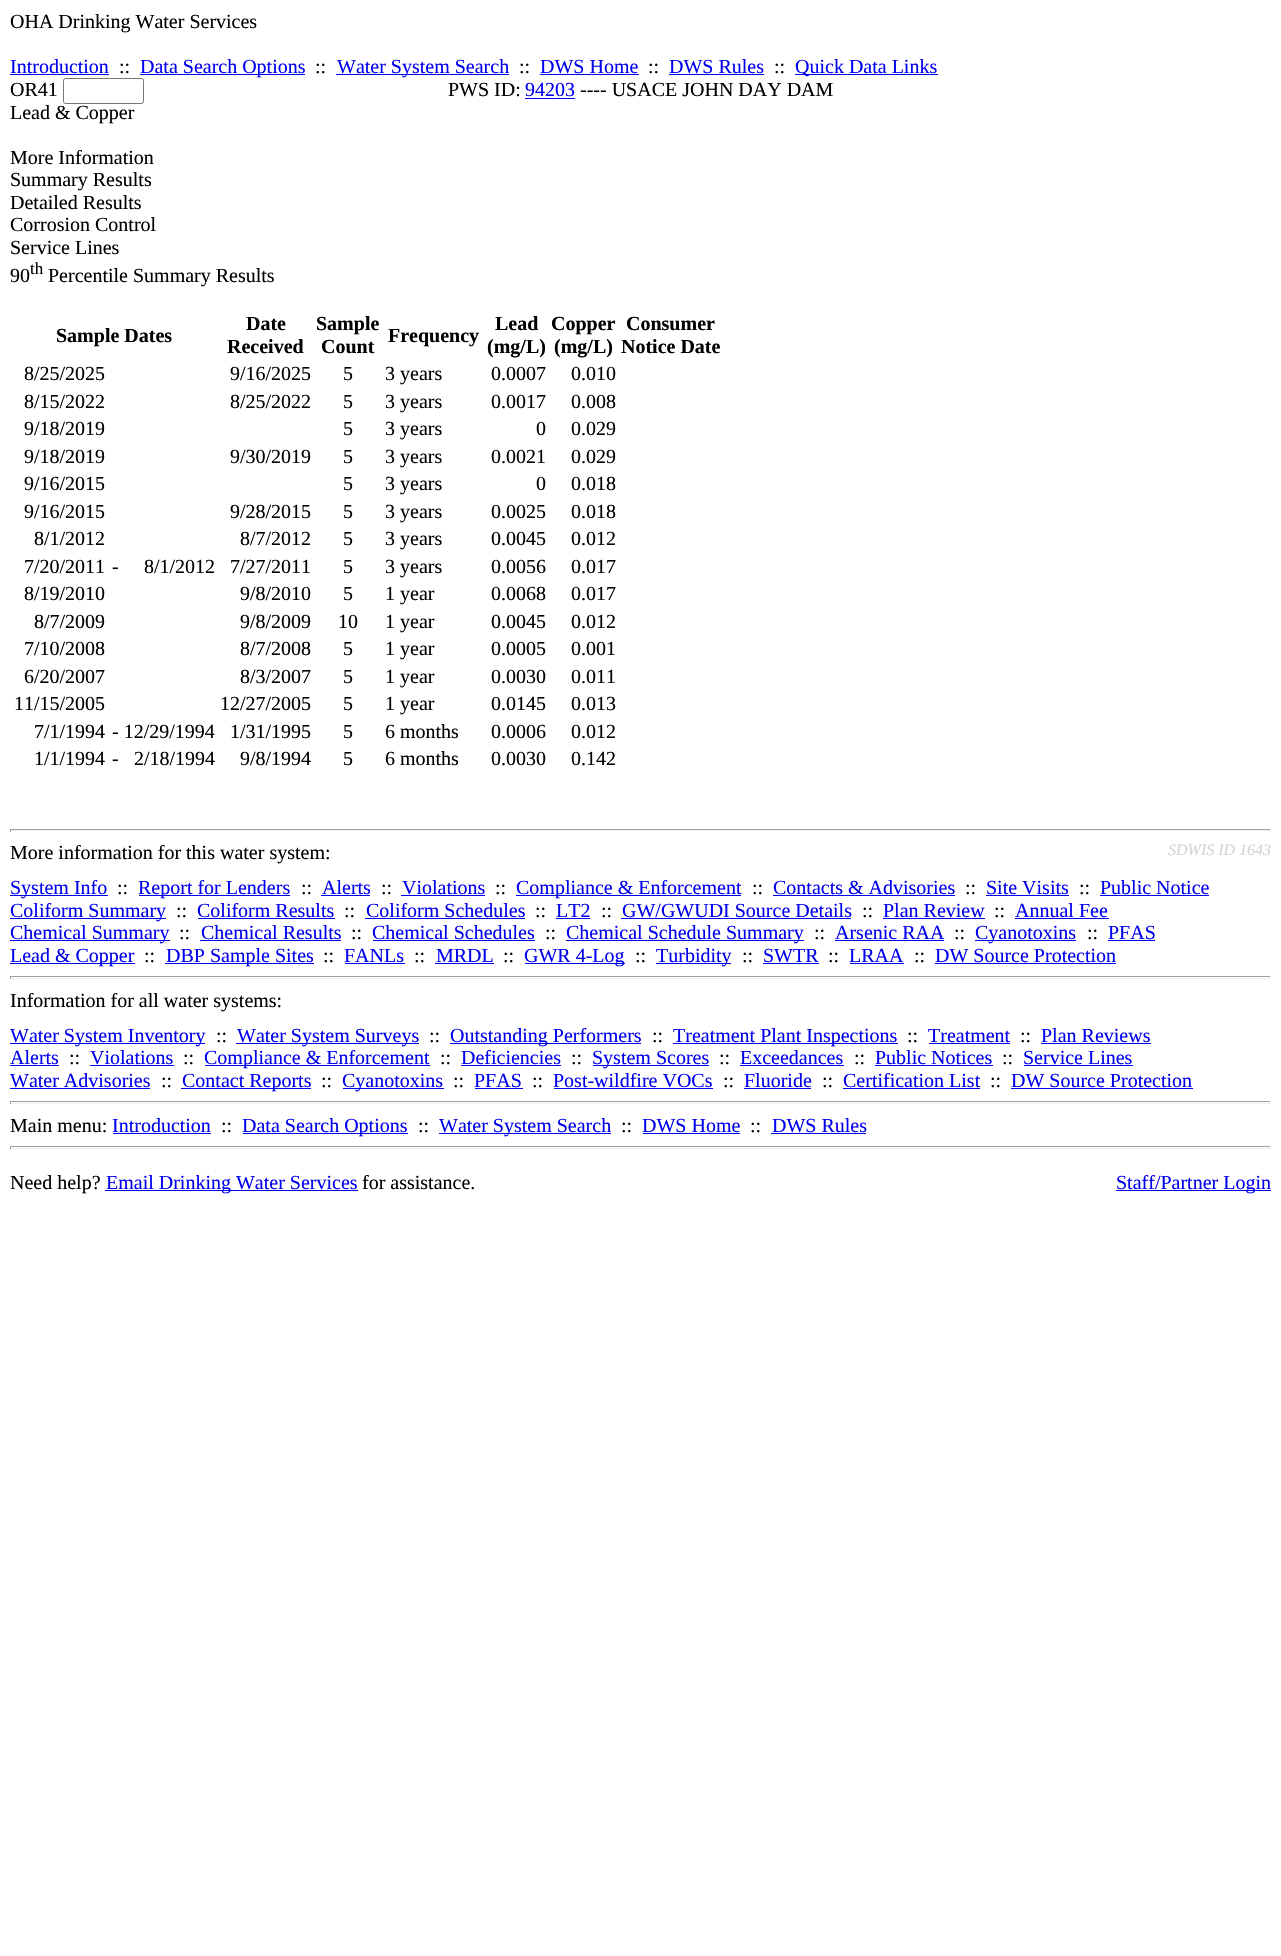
#include "include/core/SkBlurTypes.h"
#include "include/core/SkCanvas.h"
#include "include/core/SkData.h"
#include "include/core/SkFont.h"
#include "include/core/SkFontMgr.h"
#include "include/core/SkImage.h"
#include "include/core/SkMaskFilter.h"
#include "include/core/SkPaint.h"
#include "include/core/SkPathBuilder.h"
#include "include/core/SkTextBlob.h"
#include "include/effects/SkDashPathEffect.h"
#include "include/effects/SkGradientShader.h"
#include "include/utils/SkParsePath.h"

extern sk_sp<SkFontMgr> fontMgr;

void draw(SkCanvas* canvas) {
  SkPaint p;
  p.setAntiAlias(true);
  canvas->clear(SK_ColorWHITE);
  p.setColor(SkColorSetRGB(0, 0, 238));
  canvas->drawRect(SkRect::MakeLTRB(10, 74, 109, 75), p);
  canvas->drawRect(SkRect::MakeLTRB(140, 74, 305, 75), p);
  canvas->drawRect(SkRect::MakeLTRB(336, 74, 509, 75), p);
  canvas->drawRect(SkRect::MakeLTRB(540, 74, 639, 75), p);
  canvas->drawRect(SkRect::MakeLTRB(669, 74, 764, 75), p);
  canvas->drawRect(SkRect::MakeLTRB(795, 74, 938, 75), p);
  p.setStyle(SkPaint::kStroke_Style);
  p.setStrokeWidth(1);
  p.setColor(SkColorSetRGB(118, 118, 118));
  canvas->drawRoundRect(SkRect::MakeLTRB(63.5f, 78.5f, 143.5f, 103.5f), 2, 2, p);
  p.setStyle(SkPaint::kFill_Style);
  p.setColor(SkColorSetRGB(0, 0, 238));
  canvas->drawRect(SkRect::MakeLTRB(525, 98, 575, 99), p);
  p.setColor(SkColorSetRGB(159, 159, 159));
  canvas->drawRect(SkRect::MakeLTRB(10, 829, 1271, 830), p);
  p.setColor(SkColorSetRGB(238, 238, 238));
  canvas->drawRect(SkRect::MakeLTRB(1270, 829, 1271, 832), p);
  canvas->drawRect(SkRect::MakeLTRB(10, 830, 1271, 831), p);
  p.setColor(SkColorSetRGB(159, 159, 159));
  canvas->drawRect(SkRect::MakeLTRB(10, 829, 11, 832), p);
  p.setColor(SkColorSetRGB(0, 0, 238));
  canvas->drawRect(SkRect::MakeLTRB(10, 895, 108, 896), p);
  canvas->drawRect(SkRect::MakeLTRB(139, 895, 290, 896), p);
  canvas->drawRect(SkRect::MakeLTRB(321, 895, 370, 896), p);
  canvas->drawRect(SkRect::MakeLTRB(401, 895, 485, 896), p);
  canvas->drawRect(SkRect::MakeLTRB(516, 895, 741, 896), p);
  canvas->drawRect(SkRect::MakeLTRB(773, 895, 955, 896), p);
  canvas->drawRect(SkRect::MakeLTRB(986, 895, 1069, 896), p);
  canvas->drawRect(SkRect::MakeLTRB(1100, 895, 1209, 896), p);
  canvas->drawRect(SkRect::MakeLTRB(10, 918, 166, 919), p);
  canvas->drawRect(SkRect::MakeLTRB(198, 918, 335, 919), p);
  canvas->drawRect(SkRect::MakeLTRB(365, 918, 525, 919), p);
  canvas->drawRect(SkRect::MakeLTRB(556, 918, 590, 919), p);
  canvas->drawRect(SkRect::MakeLTRB(621, 918, 851, 919), p);
  canvas->drawRect(SkRect::MakeLTRB(883, 918, 985, 919), p);
  canvas->drawRect(SkRect::MakeLTRB(1015, 918, 1109, 919), p);
  canvas->drawRect(SkRect::MakeLTRB(10, 940, 170, 941), p);
  canvas->drawRect(SkRect::MakeLTRB(200, 940, 341, 941), p);
  canvas->drawRect(SkRect::MakeLTRB(373, 940, 535, 941), p);
  canvas->drawRect(SkRect::MakeLTRB(566, 940, 804, 941), p);
  canvas->drawRect(SkRect::MakeLTRB(835, 940, 944, 941), p);
  canvas->drawRect(SkRect::MakeLTRB(975, 940, 1076, 941), p);
  canvas->drawRect(SkRect::MakeLTRB(1108, 940, 1155, 941), p);
  canvas->drawRect(SkRect::MakeLTRB(10, 963, 135, 964), p);
  canvas->drawRect(SkRect::MakeLTRB(165, 963, 314, 964), p);
  canvas->drawRect(SkRect::MakeLTRB(345, 963, 405, 964), p);
  canvas->drawRect(SkRect::MakeLTRB(435, 963, 494, 964), p);
  canvas->drawRect(SkRect::MakeLTRB(525, 963, 625, 964), p);
  canvas->drawRect(SkRect::MakeLTRB(656, 963, 731, 964), p);
  canvas->drawRect(SkRect::MakeLTRB(763, 963, 819, 964), p);
  canvas->drawRect(SkRect::MakeLTRB(850, 963, 904, 964), p);
  canvas->drawRect(SkRect::MakeLTRB(935, 963, 1116, 964), p);
  p.setColor(SkColorSetRGB(159, 159, 159));
  canvas->drawRect(SkRect::MakeLTRB(10, 976, 1271, 977), p);
  p.setColor(SkColorSetRGB(238, 238, 238));
  canvas->drawRect(SkRect::MakeLTRB(1270, 976, 1271, 979), p);
  canvas->drawRect(SkRect::MakeLTRB(10, 978, 1271, 979), p);
  p.setColor(SkColorSetRGB(159, 159, 159));
  canvas->drawRect(SkRect::MakeLTRB(10, 976, 11, 979), p);
  p.setColor(SkColorSetRGB(0, 0, 238));
  canvas->drawRect(SkRect::MakeLTRB(10, 1043, 205, 1044), p);
  canvas->drawRect(SkRect::MakeLTRB(236, 1043, 419, 1044), p);
  canvas->drawRect(SkRect::MakeLTRB(450, 1043, 641, 1044), p);
  canvas->drawRect(SkRect::MakeLTRB(673, 1043, 898, 1044), p);
  canvas->drawRect(SkRect::MakeLTRB(929, 1043, 1010, 1044), p);
  canvas->drawRect(SkRect::MakeLTRB(1041, 1043, 1151, 1044), p);
  canvas->drawRect(SkRect::MakeLTRB(10, 1065, 59, 1066), p);
  canvas->drawRect(SkRect::MakeLTRB(90, 1065, 174, 1066), p);
  canvas->drawRect(SkRect::MakeLTRB(205, 1065, 430, 1066), p);
  canvas->drawRect(SkRect::MakeLTRB(461, 1065, 561, 1066), p);
  canvas->drawRect(SkRect::MakeLTRB(593, 1065, 709, 1066), p);
  canvas->drawRect(SkRect::MakeLTRB(740, 1065, 844, 1066), p);
  canvas->drawRect(SkRect::MakeLTRB(875, 1065, 993, 1066), p);
  canvas->drawRect(SkRect::MakeLTRB(1024, 1065, 1133, 1066), p);
  canvas->drawRect(SkRect::MakeLTRB(10, 1088, 150, 1089), p);
  canvas->drawRect(SkRect::MakeLTRB(181, 1088, 311, 1089), p);
  canvas->drawRect(SkRect::MakeLTRB(343, 1088, 444, 1089), p);
  canvas->drawRect(SkRect::MakeLTRB(475, 1088, 523, 1089), p);
  canvas->drawRect(SkRect::MakeLTRB(554, 1088, 713, 1089), p);
  canvas->drawRect(SkRect::MakeLTRB(744, 1088, 811, 1089), p);
  canvas->drawRect(SkRect::MakeLTRB(843, 1088, 980, 1089), p);
  canvas->drawRect(SkRect::MakeLTRB(1011, 1088, 1193, 1089), p);
  p.setColor(SkColorSetRGB(159, 159, 159));
  canvas->drawRect(SkRect::MakeLTRB(10, 1101, 1271, 1102), p);
  p.setColor(SkColorSetRGB(238, 238, 238));
  canvas->drawRect(SkRect::MakeLTRB(1270, 1101, 1271, 1104), p);
  canvas->drawRect(SkRect::MakeLTRB(10, 1103, 1271, 1104), p);
  p.setColor(SkColorSetRGB(159, 159, 159));
  canvas->drawRect(SkRect::MakeLTRB(10, 1101, 11, 1104), p);
  p.setColor(SkColorSetRGB(0, 0, 238));
  canvas->drawRect(SkRect::MakeLTRB(113, 1133, 211, 1134), p);
  canvas->drawRect(SkRect::MakeLTRB(243, 1133, 408, 1134), p);
  canvas->drawRect(SkRect::MakeLTRB(439, 1133, 611, 1134), p);
  canvas->drawRect(SkRect::MakeLTRB(643, 1133, 740, 1134), p);
  canvas->drawRect(SkRect::MakeLTRB(771, 1133, 866, 1134), p);
  p.setColor(SkColorSetRGB(159, 159, 159));
  canvas->drawRect(SkRect::MakeLTRB(10, 1146, 1271, 1147), p);
  p.setColor(SkColorSetRGB(238, 238, 238));
  canvas->drawRect(SkRect::MakeLTRB(1270, 1146, 1271, 1149), p);
  canvas->drawRect(SkRect::MakeLTRB(10, 1148, 1271, 1149), p);
  p.setColor(SkColorSetRGB(159, 159, 159));
  canvas->drawRect(SkRect::MakeLTRB(10, 1146, 11, 1149), p);
  p.setColor(SkColorSetRGB(0, 0, 238));
  canvas->drawRect(SkRect::MakeLTRB(105, 1190, 358, 1191), p);
  canvas->drawRect(SkRect::MakeLTRB(1116, 1190, 1271, 1191), p);
  SkFont font1(fontMgr->matchFamilyStyle("Liberation Serif", SkFontStyle::Normal()), 20);
  font1.setSubpixel(true);
  p.setColor(SK_ColorBLACK);
  canvas->drawString("OHA Drinking Water Services", 10, 28, font1, p);
  p.setColor(SkColorSetRGB(0, 0, 238));
  canvas->drawString("Introduction", 10, 73, font1, p);
  p.setColor(SK_ColorBLACK);
  canvas->drawString("::", 119, 73, font1, p);
  p.setColor(SkColorSetRGB(0, 0, 238));
  canvas->drawString("Data Search Options", 140, 73, font1, p);
  p.setColor(SK_ColorBLACK);
  canvas->drawString("::", 315, 73, font1, p);
  p.setColor(SkColorSetRGB(0, 0, 238));
  canvas->drawString("Water System Search", 337, 73, font1, p);
  p.setColor(SK_ColorBLACK);
  canvas->drawString("::", 519, 73, font1, p);
  p.setColor(SkColorSetRGB(0, 0, 238));
  canvas->drawString("DWS Home", 540, 73, font1, p);
  p.setColor(SK_ColorBLACK);
  canvas->drawString("::", 648, 73, font1, p);
  p.setColor(SkColorSetRGB(0, 0, 238));
  canvas->drawString("DWS Rules", 669, 73, font1, p);
  p.setColor(SK_ColorBLACK);
  canvas->drawString("::", 774, 73, font1, p);
  p.setColor(SkColorSetRGB(0, 0, 238));
  canvas->drawString("Quick Data Links", 795, 73, font1, p);
  p.setColor(SK_ColorBLACK);
  canvas->drawString("OR41", 10, 96, font1, p);
  canvas->drawString("PWS ID:", 448, 96, font1, p);
  p.setColor(SkColorSetRGB(0, 0, 238));
  canvas->drawString("94203", 525, 96, font1, p);
  p.setColor(SK_ColorBLACK);
  canvas->drawString("---- USACE JOHN DAY DAM", 580, 96, font1, p);
  canvas->drawString("Lead & Copper", 10, 119, font1, p);
  canvas->drawString("More Information", 10, 164, font1, p);
  canvas->drawString("Summary Results", 10, 186, font1, p);
  canvas->drawString("Detailed Results", 10, 209, font1, p);
  canvas->drawString("Corrosion Control", 10, 231, font1, p);
  canvas->drawString("Service Lines", 10, 254, font1, p);
  canvas->drawString("90", 10, 282, font1, p);
  SkFont font2(fontMgr->matchFamilyStyle("Liberation Serif", SkFontStyle::Normal()), 17);
  font2.setSubpixel(true);
  canvas->drawString("th", 30, 274, font2, p);
  canvas->drawString("Percentile Summary Results", 48, 282, font1, p);
  SkFont font3(fontMgr->matchFamilyStyle("Liberation Serif", SkFontStyle::Bold()), 20);
  font3.setSubpixel(true);
  canvas->drawString("Sample Dates", 56, 342, font3, p);
  canvas->drawString("Date", 246, 330, font3, p);
  canvas->drawString("Received", 227, 353, font3, p);
  canvas->drawString("Sample", 316, 330, font3, p);
  canvas->drawString("Count", 321, 353, font3, p);
  canvas->drawString("Frequency", 388, 342, font3, p);
  canvas->drawString("Lead", 495, 330, font3, p);
  canvas->drawString("(mg/L)", 487, 353, font3, p);
  canvas->drawString("Copper", 551, 330, font3, p);
  canvas->drawString("(mg/L)", 554, 353, font3, p);
  canvas->drawString("Consumer", 626, 330, font3, p);
  canvas->drawString("Notice Date", 621, 353, font3, p);
  canvas->drawString("8/25/2025", 24, 380, font1, p);
  canvas->drawString("9/16/2025", 230, 380, font1, p);
  canvas->drawString("5", 343, 380, font1, p);
  canvas->drawString("3 years", 385, 380, font1, p);
  canvas->drawString("0.0007", 491, 380, font1, p);
  canvas->drawString("0.010", 571, 380, font1, p);
  canvas->drawString("8/15/2022", 24, 408, font1, p);
  canvas->drawString("8/25/2022", 230, 408, font1, p);
  canvas->drawString("5", 343, 408, font1, p);
  canvas->drawString("3 years", 385, 408, font1, p);
  canvas->drawString("0.0017", 491, 408, font1, p);
  canvas->drawString("0.008", 571, 408, font1, p);
  canvas->drawString("9/18/2019", 24, 435, font1, p);
  canvas->drawString("5", 343, 435, font1, p);
  canvas->drawString("3 years", 385, 435, font1, p);
  canvas->drawString("0", 536, 435, font1, p);
  canvas->drawString("0.029", 571, 435, font1, p);
  canvas->drawString("9/18/2019", 24, 463, font1, p);
  canvas->drawString("9/30/2019", 230, 463, font1, p);
  canvas->drawString("5", 343, 463, font1, p);
  canvas->drawString("3 years", 385, 463, font1, p);
  canvas->drawString("0.0021", 491, 463, font1, p);
  canvas->drawString("0.029", 571, 463, font1, p);
  canvas->drawString("9/16/2015", 24, 490, font1, p);
  canvas->drawString("5", 343, 490, font1, p);
  canvas->drawString("3 years", 385, 490, font1, p);
  canvas->drawString("0", 536, 490, font1, p);
  canvas->drawString("0.018", 571, 490, font1, p);
  canvas->drawString("9/16/2015", 24, 518, font1, p);
  canvas->drawString("9/28/2015", 230, 518, font1, p);
  canvas->drawString("5", 343, 518, font1, p);
  canvas->drawString("3 years", 385, 518, font1, p);
  canvas->drawString("0.0025", 491, 518, font1, p);
  canvas->drawString("0.018", 571, 518, font1, p);
  canvas->drawString("8/1/2012", 34, 545, font1, p);
  canvas->drawString("8/7/2012", 240, 545, font1, p);
  canvas->drawString("5", 343, 545, font1, p);
  canvas->drawString("3 years", 385, 545, font1, p);
  canvas->drawString("0.0045", 491, 545, font1, p);
  canvas->drawString("0.012", 571, 545, font1, p);
  canvas->drawString("7/20/2011", 24, 573, font1, p);
  canvas->drawString("-", 112, 573, font1, p);
  canvas->drawString("8/1/2012", 144, 573, font1, p);
  canvas->drawString("7/27/2011", 230, 573, font1, p);
  canvas->drawString("5", 343, 573, font1, p);
  canvas->drawString("3 years", 385, 573, font1, p);
  canvas->drawString("0.0056", 491, 573, font1, p);
  canvas->drawString("0.017", 571, 573, font1, p);
  canvas->drawString("8/19/2010", 24, 600, font1, p);
  canvas->drawString("9/8/2010", 240, 600, font1, p);
  canvas->drawString("5", 343, 600, font1, p);
  canvas->drawString("1 year", 385, 600, font1, p);
  canvas->drawString("0.0068", 491, 600, font1, p);
  canvas->drawString("0.017", 571, 600, font1, p);
  canvas->drawString("8/7/2009", 34, 628, font1, p);
  canvas->drawString("9/8/2009", 240, 628, font1, p);
  canvas->drawString("10", 338, 628, font1, p);
  canvas->drawString("1 year", 385, 628, font1, p);
  canvas->drawString("0.0045", 491, 628, font1, p);
  canvas->drawString("0.012", 571, 628, font1, p);
  canvas->drawString("7/10/2008", 24, 655, font1, p);
  canvas->drawString("8/7/2008", 240, 655, font1, p);
  canvas->drawString("5", 343, 655, font1, p);
  canvas->drawString("1 year", 385, 655, font1, p);
  canvas->drawString("0.0005", 491, 655, font1, p);
  canvas->drawString("0.001", 571, 655, font1, p);
  canvas->drawString("6/20/2007", 24, 683, font1, p);
  canvas->drawString("8/3/2007", 240, 683, font1, p);
  canvas->drawString("5", 343, 683, font1, p);
  canvas->drawString("1 year", 385, 683, font1, p);
  canvas->drawString("0.0030", 491, 683, font1, p);
  canvas->drawString("0.011", 571, 683, font1, p);
  canvas->drawString("11/15/2005", 14, 710, font1, p);
  canvas->drawString("12/27/2005", 220, 710, font1, p);
  canvas->drawString("5", 343, 710, font1, p);
  canvas->drawString("1 year", 385, 710, font1, p);
  canvas->drawString("0.0145", 491, 710, font1, p);
  canvas->drawString("0.013", 571, 710, font1, p);
  canvas->drawString("7/1/1994", 34, 738, font1, p);
  canvas->drawString("- 12/29/1994", 112, 738, font1, p);
  canvas->drawString("1/31/1995", 230, 738, font1, p);
  canvas->drawString("5", 343, 738, font1, p);
  canvas->drawString("6 months", 385, 738, font1, p);
  canvas->drawString("0.0006", 491, 738, font1, p);
  canvas->drawString("0.012", 571, 738, font1, p);
  canvas->drawString("1/1/1994", 34, 765, font1, p);
  canvas->drawString("-", 112, 765, font1, p);
  canvas->drawString("2/18/1994", 134, 765, font1, p);
  canvas->drawString("9/8/1994", 240, 765, font1, p);
  canvas->drawString("5", 343, 765, font1, p);
  canvas->drawString("6 months", 385, 765, font1, p);
  canvas->drawString("0.0030", 491, 765, font1, p);
  canvas->drawString("0.142", 571, 765, font1, p);
  canvas->drawString("More information for this water system:", 10, 859, font1, p);
  SkFont font4(fontMgr->matchFamilyStyle("Liberation Serif", SkFontStyle::Italic()), 16);
  font4.setSubpixel(true);
  p.setColor(SkColorSetRGB(211, 211, 211));
  canvas->drawString("SDWIS ID 1643", 1168, 855, font4, p);
  p.setColor(SkColorSetRGB(0, 0, 238));
  canvas->drawString("System Info", 10, 894, font1, p);
  p.setColor(SK_ColorBLACK);
  canvas->drawString("::", 117, 894, font1, p);
  p.setColor(SkColorSetRGB(0, 0, 238));
  canvas->drawString("Report for Lenders", 138, 894, font1, p);
  p.setColor(SK_ColorBLACK);
  canvas->drawString("::", 301, 894, font1, p);
  p.setColor(SkColorSetRGB(0, 0, 238));
  canvas->drawString("Alerts", 322, 894, font1, p);
  p.setColor(SK_ColorBLACK);
  canvas->drawString("::", 381, 894, font1, p);
  p.setColor(SkColorSetRGB(0, 0, 238));
  canvas->drawString("Violations", 402, 894, font1, p);
  p.setColor(SK_ColorBLACK);
  canvas->drawString("::", 495, 894, font1, p);
  p.setColor(SkColorSetRGB(0, 0, 238));
  canvas->drawString("Compliance & Enforcement", 516, 894, font1, p);
  p.setColor(SK_ColorBLACK);
  canvas->drawString("::", 752, 894, font1, p);
  p.setColor(SkColorSetRGB(0, 0, 238));
  canvas->drawString("Contacts & Advisories", 773, 894, font1, p);
  p.setColor(SK_ColorBLACK);
  canvas->drawString("::", 965, 894, font1, p);
  p.setColor(SkColorSetRGB(0, 0, 238));
  canvas->drawString("Site Visits", 986, 894, font1, p);
  p.setColor(SK_ColorBLACK);
  canvas->drawString("::", 1079, 894, font1, p);
  p.setColor(SkColorSetRGB(0, 0, 238));
  canvas->drawString("Public Notice", 1100, 894, font1, p);
  canvas->drawString("Coliform Summary", 10, 917, font1, p);
  p.setColor(SK_ColorBLACK);
  canvas->drawString("::", 176, 917, font1, p);
  p.setColor(SkColorSetRGB(0, 0, 238));
  canvas->drawString("Coliform Results", 197, 917, font1, p);
  p.setColor(SK_ColorBLACK);
  canvas->drawString("::", 344, 917, font1, p);
  p.setColor(SkColorSetRGB(0, 0, 238));
  canvas->drawString("Coliform Schedules", 366, 917, font1, p);
  p.setColor(SK_ColorBLACK);
  canvas->drawString("::", 535, 917, font1, p);
  p.setColor(SkColorSetRGB(0, 0, 238));
  canvas->drawString("LT2", 556, 917, font1, p);
  p.setColor(SK_ColorBLACK);
  canvas->drawString("::", 601, 917, font1, p);
  p.setColor(SkColorSetRGB(0, 0, 238));
  canvas->drawString("GW/GWUDI Source Details", 622, 917, font1, p);
  p.setColor(SK_ColorBLACK);
  canvas->drawString("::", 862, 917, font1, p);
  p.setColor(SkColorSetRGB(0, 0, 238));
  canvas->drawString("Plan Review", 883, 917, font1, p);
  p.setColor(SK_ColorBLACK);
  canvas->drawString("::", 994, 917, font1, p);
  p.setColor(SkColorSetRGB(0, 0, 238));
  canvas->drawString("Annual Fee", 1015, 917, font1, p);
  canvas->drawString("Chemical Summary", 10, 939, font1, p);
  p.setColor(SK_ColorBLACK);
  canvas->drawString("::", 179, 939, font1, p);
  p.setColor(SkColorSetRGB(0, 0, 238));
  canvas->drawString("Chemical Results", 201, 939, font1, p);
  p.setColor(SK_ColorBLACK);
  canvas->drawString("::", 351, 939, font1, p);
  p.setColor(SkColorSetRGB(0, 0, 238));
  canvas->drawString("Chemical Schedules", 372, 939, font1, p);
  p.setColor(SK_ColorBLACK);
  canvas->drawString("::", 545, 939, font1, p);
  p.setColor(SkColorSetRGB(0, 0, 238));
  canvas->drawString("Chemical Schedule Summary", 566, 939, font1, p);
  p.setColor(SK_ColorBLACK);
  canvas->drawString("::", 814, 939, font1, p);
  p.setColor(SkColorSetRGB(0, 0, 238));
  canvas->drawString("Arsenic RAA", 835, 939, font1, p);
  p.setColor(SK_ColorBLACK);
  canvas->drawString("::", 954, 939, font1, p);
  p.setColor(SkColorSetRGB(0, 0, 238));
  canvas->drawString("Cyanotoxins", 975, 939, font1, p);
  p.setColor(SK_ColorBLACK);
  canvas->drawString("::", 1087, 939, font1, p);
  p.setColor(SkColorSetRGB(0, 0, 238));
  canvas->drawString("PFAS", 1108, 939, font1, p);
  canvas->drawString("Lead & Copper", 10, 962, font1, p);
  p.setColor(SK_ColorBLACK);
  canvas->drawString("::", 144, 962, font1, p);
  p.setColor(SkColorSetRGB(0, 0, 238));
  canvas->drawString("DBP Sample Sites", 166, 962, font1, p);
  p.setColor(SK_ColorBLACK);
  canvas->drawString("::", 323, 962, font1, p);
  p.setColor(SkColorSetRGB(0, 0, 238));
  canvas->drawString("FANLs", 344, 962, font1, p);
  p.setColor(SK_ColorBLACK);
  canvas->drawString("::", 414, 962, font1, p);
  p.setColor(SkColorSetRGB(0, 0, 238));
  canvas->drawString("MRDL", 436, 962, font1, p);
  p.setColor(SK_ColorBLACK);
  canvas->drawString("::", 503, 962, font1, p);
  p.setColor(SkColorSetRGB(0, 0, 238));
  canvas->drawString("GWR 4-Log", 524, 962, font1, p);
  p.setColor(SK_ColorBLACK);
  canvas->drawString("::", 635, 962, font1, p);
  p.setColor(SkColorSetRGB(0, 0, 238));
  canvas->drawString("Turbidity", 656, 962, font1, p);
  p.setColor(SK_ColorBLACK);
  canvas->drawString("::", 742, 962, font1, p);
  p.setColor(SkColorSetRGB(0, 0, 238));
  canvas->drawString("SWTR", 763, 962, font1, p);
  p.setColor(SK_ColorBLACK);
  canvas->drawString("::", 828, 962, font1, p);
  p.setColor(SkColorSetRGB(0, 0, 238));
  canvas->drawString("LRAA", 849, 962, font1, p);
  p.setColor(SK_ColorBLACK);
  canvas->drawString("::", 914, 962, font1, p);
  p.setColor(SkColorSetRGB(0, 0, 238));
  canvas->drawString("DW Source Protection", 935, 962, font1, p);
  p.setColor(SK_ColorBLACK);
  canvas->drawString("Information for all water systems:", 10, 1007, font1, p);
  p.setColor(SkColorSetRGB(0, 0, 238));
  canvas->drawString("Water System Inventory", 10, 1042, font1, p);
  p.setColor(SK_ColorBLACK);
  canvas->drawString("::", 216, 1042, font1, p);
  p.setColor(SkColorSetRGB(0, 0, 238));
  canvas->drawString("Water System Surveys", 237, 1042, font1, p);
  p.setColor(SK_ColorBLACK);
  canvas->drawString("::", 429, 1042, font1, p);
  p.setColor(SkColorSetRGB(0, 0, 238));
  canvas->drawString("Outstanding Performers", 450, 1042, font1, p);
  p.setColor(SK_ColorBLACK);
  canvas->drawString("::", 652, 1042, font1, p);
  p.setColor(SkColorSetRGB(0, 0, 238));
  canvas->drawString("Treatment Plant Inspections", 673, 1042, font1, p);
  p.setColor(SK_ColorBLACK);
  canvas->drawString("::", 907, 1042, font1, p);
  p.setColor(SkColorSetRGB(0, 0, 238));
  canvas->drawString("Treatment", 928, 1042, font1, p);
  p.setColor(SK_ColorBLACK);
  canvas->drawString("::", 1020, 1042, font1, p);
  p.setColor(SkColorSetRGB(0, 0, 238));
  canvas->drawString("Plan Reviews", 1041, 1042, font1, p);
  canvas->drawString("Alerts", 10, 1064, font1, p);
  p.setColor(SK_ColorBLACK);
  canvas->drawString("::", 69, 1064, font1, p);
  p.setColor(SkColorSetRGB(0, 0, 238));
  canvas->drawString("Violations", 90, 1064, font1, p);
  p.setColor(SK_ColorBLACK);
  canvas->drawString("::", 183, 1064, font1, p);
  p.setColor(SkColorSetRGB(0, 0, 238));
  canvas->drawString("Compliance & Enforcement", 204, 1064, font1, p);
  p.setColor(SK_ColorBLACK);
  canvas->drawString("::", 440, 1064, font1, p);
  p.setColor(SkColorSetRGB(0, 0, 238));
  canvas->drawString("Deficiencies", 461, 1064, font1, p);
  p.setColor(SK_ColorBLACK);
  canvas->drawString("::", 571, 1064, font1, p);
  p.setColor(SkColorSetRGB(0, 0, 238));
  canvas->drawString("System Scores", 592, 1064, font1, p);
  p.setColor(SK_ColorBLACK);
  canvas->drawString("::", 719, 1064, font1, p);
  p.setColor(SkColorSetRGB(0, 0, 238));
  canvas->drawString("Exceedances", 740, 1064, font1, p);
  p.setColor(SK_ColorBLACK);
  canvas->drawString("::", 854, 1064, font1, p);
  p.setColor(SkColorSetRGB(0, 0, 238));
  canvas->drawString("Public Notices", 875, 1064, font1, p);
  p.setColor(SK_ColorBLACK);
  canvas->drawString("::", 1002, 1064, font1, p);
  p.setColor(SkColorSetRGB(0, 0, 238));
  canvas->drawString("Service Lines", 1023, 1064, font1, p);
  canvas->drawString("Water Advisories", 10, 1087, font1, p);
  p.setColor(SK_ColorBLACK);
  canvas->drawString("::", 161, 1087, font1, p);
  p.setColor(SkColorSetRGB(0, 0, 238));
  canvas->drawString("Contact Reports", 182, 1087, font1, p);
  p.setColor(SK_ColorBLACK);
  canvas->drawString("::", 321, 1087, font1, p);
  p.setColor(SkColorSetRGB(0, 0, 238));
  canvas->drawString("Cyanotoxins", 342, 1087, font1, p);
  p.setColor(SK_ColorBLACK);
  canvas->drawString("::", 453, 1087, font1, p);
  p.setColor(SkColorSetRGB(0, 0, 238));
  canvas->drawString("PFAS", 474, 1087, font1, p);
  p.setColor(SK_ColorBLACK);
  canvas->drawString("::", 532, 1087, font1, p);
  p.setColor(SkColorSetRGB(0, 0, 238));
  canvas->drawString("Post-wildfire VOCs", 553, 1087, font1, p);
  p.setColor(SK_ColorBLACK);
  canvas->drawString("::", 723, 1087, font1, p);
  p.setColor(SkColorSetRGB(0, 0, 238));
  canvas->drawString("Fluoride", 744, 1087, font1, p);
  p.setColor(SK_ColorBLACK);
  canvas->drawString("::", 822, 1087, font1, p);
  p.setColor(SkColorSetRGB(0, 0, 238));
  canvas->drawString("Certification List", 843, 1087, font1, p);
  p.setColor(SK_ColorBLACK);
  canvas->drawString("::", 990, 1087, font1, p);
  p.setColor(SkColorSetRGB(0, 0, 238));
  canvas->drawString("DW Source Protection", 1011, 1087, font1, p);
  p.setColor(SK_ColorBLACK);
  canvas->drawString("Main menu:", 10, 1132, font1, p);
  p.setColor(SkColorSetRGB(0, 0, 238));
  canvas->drawString("Introduction", 112, 1132, font1, p);
  p.setColor(SK_ColorBLACK);
  canvas->drawString("::", 221, 1132, font1, p);
  p.setColor(SkColorSetRGB(0, 0, 238));
  canvas->drawString("Data Search Options", 242, 1132, font1, p);
  p.setColor(SK_ColorBLACK);
  canvas->drawString("::", 418, 1132, font1, p);
  p.setColor(SkColorSetRGB(0, 0, 238));
  canvas->drawString("Water System Search", 439, 1132, font1, p);
  p.setColor(SK_ColorBLACK);
  canvas->drawString("::", 621, 1132, font1, p);
  p.setColor(SkColorSetRGB(0, 0, 238));
  canvas->drawString("DWS Home", 642, 1132, font1, p);
  p.setColor(SK_ColorBLACK);
  canvas->drawString("::", 750, 1132, font1, p);
  p.setColor(SkColorSetRGB(0, 0, 238));
  canvas->drawString("DWS Rules", 772, 1132, font1, p);
  p.setColor(SK_ColorBLACK);
  canvas->drawString("Need help?", 10, 1189, font1, p);
  p.setColor(SkColorSetRGB(0, 0, 238));
  canvas->drawString("Email Drinking Water Services", 106, 1189, font1, p);
  p.setColor(SK_ColorBLACK);
  canvas->drawString("for assistance.", 362, 1189, font1, p);
  p.setColor(SkColorSetRGB(0, 0, 238));
  canvas->drawString("Staff/Partner Login", 1116, 1189, font1, p);
}
